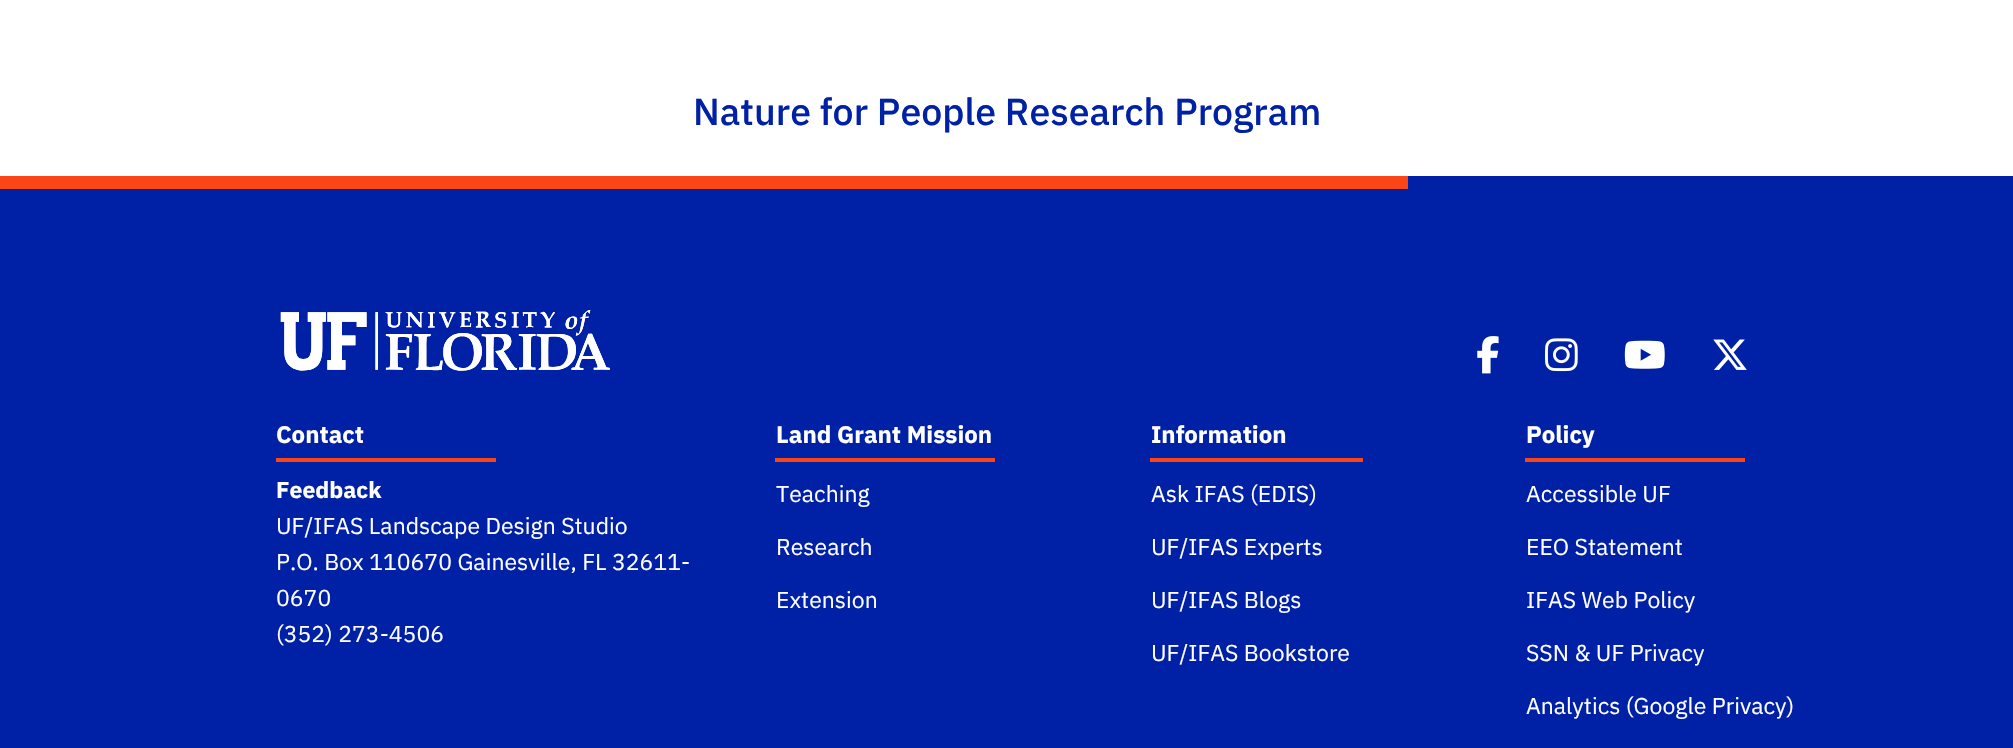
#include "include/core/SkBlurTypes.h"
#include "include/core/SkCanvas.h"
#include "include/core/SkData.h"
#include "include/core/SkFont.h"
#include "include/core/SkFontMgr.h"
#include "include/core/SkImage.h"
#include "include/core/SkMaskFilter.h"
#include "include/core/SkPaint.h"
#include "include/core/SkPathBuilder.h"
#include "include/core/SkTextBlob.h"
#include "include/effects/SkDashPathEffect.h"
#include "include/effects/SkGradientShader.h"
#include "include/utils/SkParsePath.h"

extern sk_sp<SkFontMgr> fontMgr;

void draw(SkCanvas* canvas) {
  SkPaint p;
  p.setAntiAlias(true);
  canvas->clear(SK_ColorWHITE);
  p.setColor(SkColorSetRGB(0, 33, 165));
  canvas->drawRect(SkRect::MakeLTRB(0, 176, 2013, 748), p);
  p.setColor(SkColorSetRGB(250, 70, 22));
  canvas->drawRect(SkRect::MakeLTRB(0, 176, 1408, 189), p);
  canvas->drawImageRect(SkImages::DeferredFromEncodedData(SkData::MakeFromFileName("images/1.png")), SkRect::MakeLTRB(280, 310, 610, 371), SkSamplingOptions());
  canvas->drawImageRect(SkImages::DeferredFromEncodedData(SkData::MakeFromFileName("images/2.png")), SkRect::MakeLTRB(1477, 336, 1499, 374), SkSamplingOptions());
  canvas->drawImageRect(SkImages::DeferredFromEncodedData(SkData::MakeFromFileName("images/3.png")), SkRect::MakeLTRB(1545, 338, 1578, 372), SkSamplingOptions());
  canvas->drawImageRect(SkImages::DeferredFromEncodedData(SkData::MakeFromFileName("images/4.png")), SkRect::MakeLTRB(1624, 340, 1665, 369), SkSamplingOptions());
  canvas->drawImageRect(SkImages::DeferredFromEncodedData(SkData::MakeFromFileName("images/5.png")), SkRect::MakeLTRB(1713, 339, 1747, 370), SkSamplingOptions());
  canvas->drawRect(SkRect::MakeLTRB(276, 458, 496, 462), p);
  canvas->drawRect(SkRect::MakeLTRB(775, 458, 995, 462), p);
  canvas->drawRect(SkRect::MakeLTRB(1150, 458, 1363, 462), p);
  canvas->drawRect(SkRect::MakeLTRB(1525, 458, 1745, 462), p);
  SkFont font1(fontMgr->matchFamilyStyle("IBM Plex Sans", SkFontStyle(500, SkFontStyle::kNormal_Width, SkFontStyle::kUpright_Slant)), 37.5f);
  font1.setSubpixel(true);
  p.setColor(SkColorSetRGB(0, 33, 165));
  canvas->drawString("Nature for People Research Program", 693, 125, font1, p);
  SkFont font2(fontMgr->matchFamilyStyle("IBM Plex Sans", SkFontStyle::Bold()), 24);
  font2.setSubpixel(true);
  p.setColor(SK_ColorWHITE);
  canvas->drawString("Contact", 276, 443, font2, p);
  SkFont font3(fontMgr->matchFamilyStyle("IBM Plex Sans", SkFontStyle::Bold()), 23);
  font3.setSubpixel(true);
  canvas->drawString("Feedback", 276, 498, font3, p);
  SkFont font4(fontMgr->matchFamilyStyle("IBM Plex Sans", SkFontStyle::Normal()), 23);
  font4.setSubpixel(true);
  canvas->drawString("UF/IFAS Landscape Design Studio", 276, 534, font4, p);
  canvas->drawString("P.O. Box 110670 Gainesville, FL 32611-", 276, 570, font4, p);
  canvas->drawString("0670", 276, 606, font4, p);
  canvas->drawString("(352) 273-4506", 276, 642, font4, p);
  canvas->drawString("Land Grant Mission", 776, 443, font2, p);
  canvas->drawString("Teaching", 776, 502, font4, p);
  canvas->drawString("Research", 776, 555, font4, p);
  canvas->drawString("Extension", 776, 608, font4, p);
  canvas->drawString("Information", 1151, 443, font2, p);
  canvas->drawString("Ask IFAS (EDIS)", 1151, 502, font4, p);
  canvas->drawString("UF/IFAS Experts", 1151, 555, font4, p);
  canvas->drawString("UF/IFAS Blogs", 1151, 608, font4, p);
  canvas->drawString("UF/IFAS Bookstore", 1151, 661, font4, p);
  canvas->drawString("Policy", 1526, 443, font2, p);
  canvas->drawString("Accessible UF", 1526, 502, font4, p);
  canvas->drawString("EEO Statement", 1526, 555, font4, p);
  canvas->drawString("IFAS Web Policy", 1526, 608, font4, p);
  canvas->drawString("SSN & UF Privacy", 1526, 661, font4, p);
  canvas->drawString("Analytics (Google Privacy)", 1526, 714, font4, p);
}
